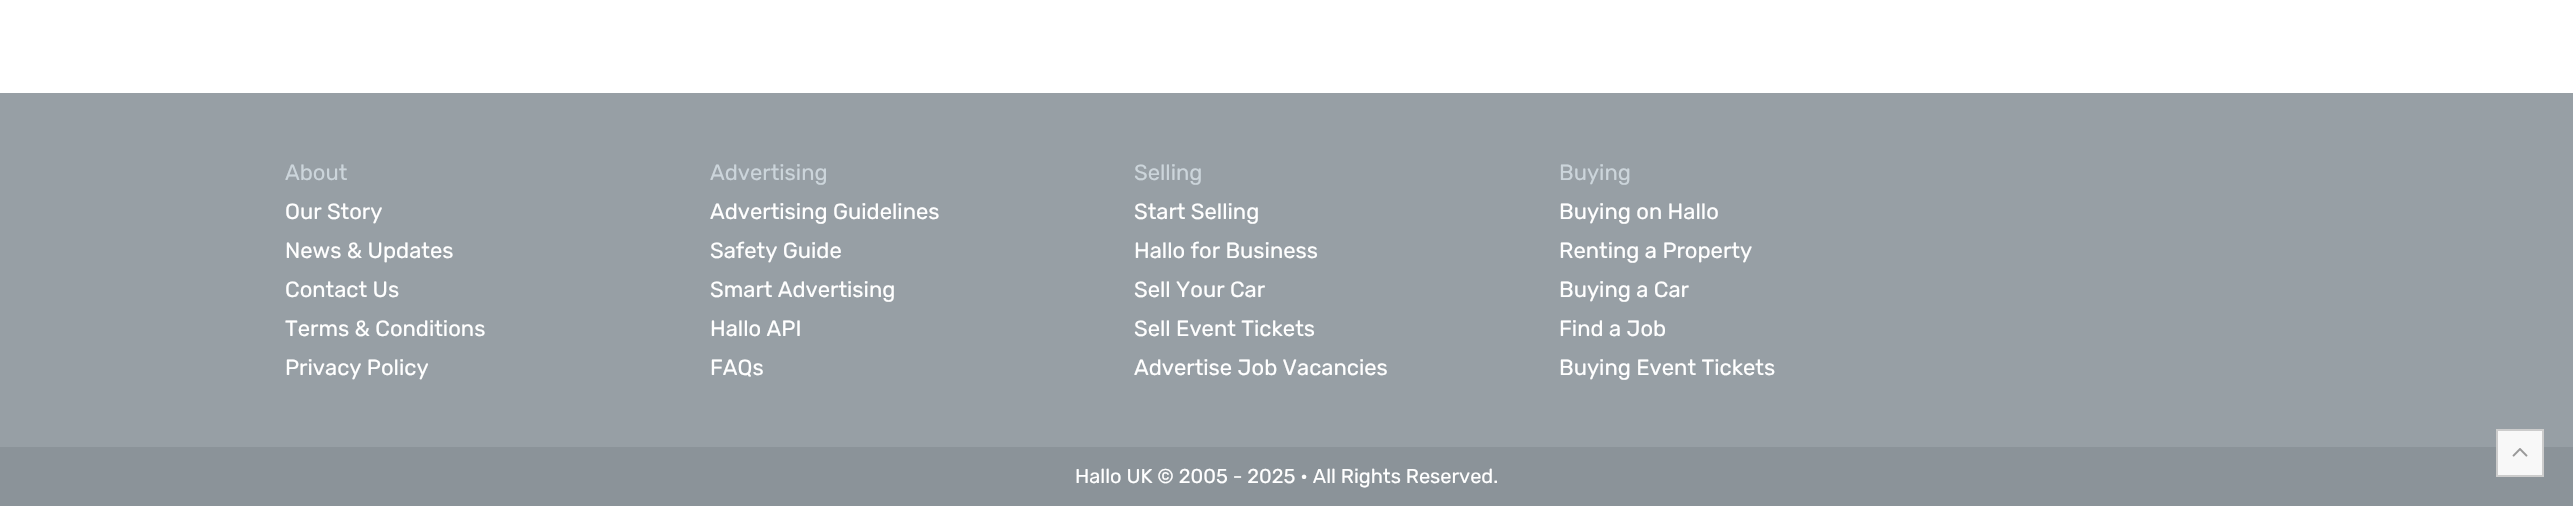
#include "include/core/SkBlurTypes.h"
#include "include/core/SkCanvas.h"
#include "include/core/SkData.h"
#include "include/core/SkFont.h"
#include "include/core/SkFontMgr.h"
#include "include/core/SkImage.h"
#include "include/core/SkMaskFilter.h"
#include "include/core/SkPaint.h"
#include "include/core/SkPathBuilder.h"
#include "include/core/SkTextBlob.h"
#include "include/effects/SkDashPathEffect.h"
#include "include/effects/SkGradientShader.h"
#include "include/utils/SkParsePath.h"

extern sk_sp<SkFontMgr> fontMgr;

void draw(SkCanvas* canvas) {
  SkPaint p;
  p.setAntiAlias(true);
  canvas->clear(SK_ColorWHITE);
  p.setColor(SkColorSetRGB(151, 159, 165));
  canvas->drawRect(SkRect::MakeLTRB(0, 93, 2573, 447), p);
  p.setColor(SkColorSetRGB(139, 147, 153));
  canvas->drawRect(SkRect::MakeLTRB(0, 447, 2573, 506), p);
  p.setColor(SkColorSetRGB(248, 248, 248));
  canvas->drawRect(SkRect::MakeLTRB(2497, 430, 2543, 476), p);
  p.setStyle(SkPaint::kStroke_Style);
  p.setStrokeWidth(2);
  p.setColor(SkColorSetRGB(204, 204, 204));
  canvas->drawRect(SkRect::MakeLTRB(2497, 430, 2543, 476), p);
  canvas->drawImageRect(SkImages::DeferredFromEncodedData(SkData::MakeFromFileName("images/1.png")), SkRect::MakeLTRB(2512, 448, 2528, 457), SkSamplingOptions());
  SkFont font1(fontMgr->matchFamilyStyle("Rubik", SkFontStyle(300, SkFontStyle::kNormal_Width, SkFontStyle::kUpright_Slant)), 22);
  font1.setSubpixel(true);
  p.setStyle(SkPaint::kFill_Style);
  p.setColor(SkColorSetRGB(204, 213, 219));
  canvas->drawString("About", 285, 180, font1, p);
  p.setColor(SK_ColorWHITE);
  canvas->drawString("Our Story", 285, 219, font1, p);
  canvas->drawString("News & Updates", 285, 258, font1, p);
  canvas->drawString("Contact Us", 285, 297, font1, p);
  canvas->drawString("Terms & Conditions", 285, 336, font1, p);
  canvas->drawString("Privacy Policy", 285, 375, font1, p);
  p.setColor(SkColorSetRGB(204, 213, 219));
  canvas->drawString("Advertising", 710, 180, font1, p);
  p.setColor(SK_ColorWHITE);
  canvas->drawString("Advertising Guidelines", 710, 219, font1, p);
  canvas->drawString("Safety Guide", 710, 258, font1, p);
  canvas->drawString("Smart Advertising", 710, 297, font1, p);
  canvas->drawString("Hallo API", 710, 336, font1, p);
  canvas->drawString("FAQs", 710, 375, font1, p);
  p.setColor(SkColorSetRGB(204, 213, 219));
  canvas->drawString("Selling", 1134, 180, font1, p);
  p.setColor(SK_ColorWHITE);
  canvas->drawString("Start Selling", 1134, 219, font1, p);
  canvas->drawString("Hallo for Business", 1134, 258, font1, p);
  canvas->drawString("Sell Your Car", 1134, 297, font1, p);
  canvas->drawString("Sell Event Tickets", 1134, 336, font1, p);
  canvas->drawString("Advertise Job Vacancies", 1134, 375, font1, p);
  p.setColor(SkColorSetRGB(204, 213, 219));
  canvas->drawString("Buying", 1559, 180, font1, p);
  p.setColor(SK_ColorWHITE);
  canvas->drawString("Buying on Hallo", 1559, 219, font1, p);
  canvas->drawString("Renting a Property", 1559, 258, font1, p);
  canvas->drawString("Buying a Car", 1559, 297, font1, p);
  canvas->drawString("Find a Job", 1559, 336, font1, p);
  canvas->drawString("Buying Event Tickets", 1559, 375, font1, p);
  SkFont font2(fontMgr->matchFamilyStyle("Rubik", SkFontStyle(300, SkFontStyle::kNormal_Width, SkFontStyle::kUpright_Slant)), 20);
  font2.setSubpixel(true);
  canvas->drawString("Hallo UK © 2005 - 2025 • All Rights Reserved.", 1075, 483, font2, p);
}
